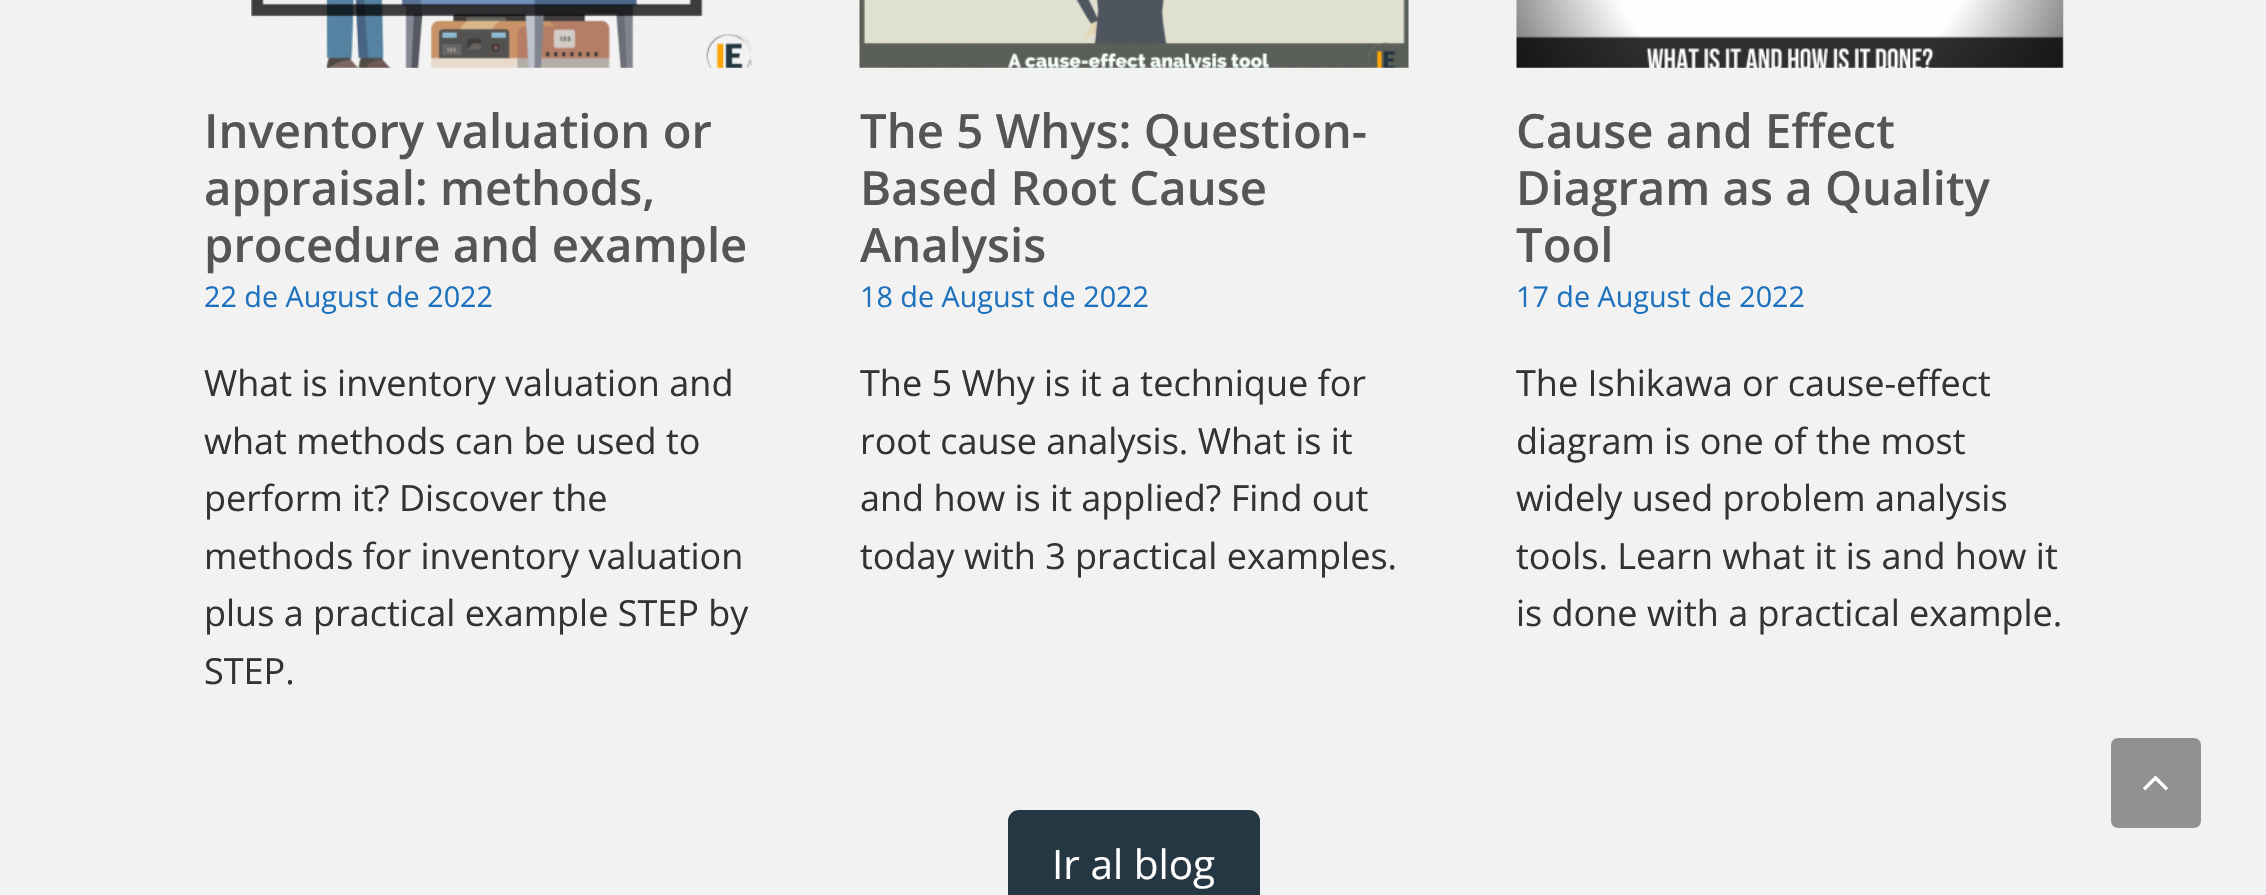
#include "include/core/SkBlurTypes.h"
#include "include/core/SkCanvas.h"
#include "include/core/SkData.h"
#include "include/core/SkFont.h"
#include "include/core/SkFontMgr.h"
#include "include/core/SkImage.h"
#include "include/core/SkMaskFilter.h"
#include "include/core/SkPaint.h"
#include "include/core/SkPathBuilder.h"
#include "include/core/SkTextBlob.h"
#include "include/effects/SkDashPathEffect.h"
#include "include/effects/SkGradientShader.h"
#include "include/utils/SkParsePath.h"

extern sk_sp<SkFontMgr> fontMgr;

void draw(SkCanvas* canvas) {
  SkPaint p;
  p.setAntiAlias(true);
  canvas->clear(SkColorSetRGB(242, 242, 242));
  canvas->drawImageRect(SkImages::DeferredFromEncodedData(SkData::MakeFromFileName("images/1.png")), SkRect::MakeLTRB(251, 0, 752, 68), SkSamplingOptions());
  canvas->drawImageRect(SkImages::DeferredFromEncodedData(SkData::MakeFromFileName("images/2.png")), SkRect::MakeLTRB(859, 0, 1409, 68), SkSamplingOptions());
  canvas->drawImageRect(SkImages::DeferredFromEncodedData(SkData::MakeFromFileName("images/3.png")), SkRect::MakeLTRB(1516, 0, 2064, 68), SkSamplingOptions());
  p.setColor(SkColorSetRGB(36, 55, 67));
  canvas->drawRoundRect(SkRect::MakeLTRB(1008, 810, 1260, 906), 11, 11, p);
  p.setColor(SkColorSetRGB(145, 145, 145));
  canvas->drawRoundRect(SkRect::MakeLTRB(2111, 738, 2201, 828), 7, 7, p);
  canvas->drawImageRect(SkImages::DeferredFromEncodedData(SkData::MakeFromFileName("images/4.png")), SkRect::MakeLTRB(2143, 775, 2168, 791), SkSamplingOptions());
  SkFont font1(fontMgr->matchFamilyStyle("Open Sans", SkFontStyle(600, SkFontStyle::kNormal_Width, SkFontStyle::kUpright_Slant)), 47.25f);
  font1.setSubpixel(true);
  p.setColor(SkColorSetRGB(85, 85, 85));
  canvas->drawString("Inventory valuation or", 204, 148, font1, p);
  canvas->drawString("appraisal: methods,", 204, 205, font1, p);
  canvas->drawString("procedure and example", 204, 262, font1, p);
  SkFont font2(fontMgr->matchFamilyStyle("Open Sans", SkFontStyle::Normal()), 28.75f);
  font2.setSubpixel(true);
  p.setColor(SkColorSetRGB(30, 114, 189));
  canvas->drawString("22 de August de 2022", 204, 307, font2, p);
  SkFont font3(fontMgr->matchFamilyStyle("Open Sans", SkFontStyle::Normal()), 36);
  font3.setSubpixel(true);
  p.setColor(SkColorSetRGB(51, 51, 51));
  canvas->drawString("What is inventory valuation and", 204, 396, font3, p);
  canvas->drawString("what methods can be used to", 204, 454, font3, p);
  canvas->drawString("perform it? Discover the", 204, 511, font3, p);
  canvas->drawString("methods for inventory valuation", 204, 569, font3, p);
  canvas->drawString("plus a practical example STEP by", 204, 626, font3, p);
  canvas->drawString("STEP.", 204, 684, font3, p);
  p.setColor(SkColorSetRGB(85, 85, 85));
  canvas->drawString("The 5 Whys: Question-", 860, 148, font1, p);
  canvas->drawString("Based Root Cause", 860, 205, font1, p);
  canvas->drawString("Analysis", 860, 262, font1, p);
  p.setColor(SkColorSetRGB(30, 114, 189));
  canvas->drawString("18 de August de 2022", 860, 307, font2, p);
  p.setColor(SkColorSetRGB(51, 51, 51));
  canvas->drawString("The 5 Why is it a technique for", 860, 396, font3, p);
  canvas->drawString("root cause analysis. What is it", 860, 454, font3, p);
  canvas->drawString("and how is it applied? Find out", 860, 511, font3, p);
  canvas->drawString("today with 3 practical examples.", 860, 569, font3, p);
  p.setColor(SkColorSetRGB(85, 85, 85));
  canvas->drawString("Cause and Effect", 1516, 148, font1, p);
  canvas->drawString("Diagram as a Quality", 1516, 205, font1, p);
  canvas->drawString("Tool", 1516, 262, font1, p);
  p.setColor(SkColorSetRGB(30, 114, 189));
  canvas->drawString("17 de August de 2022", 1516, 307, font2, p);
  p.setColor(SkColorSetRGB(51, 51, 51));
  canvas->drawString("The Ishikawa or cause-effect", 1516, 396, font3, p);
  canvas->drawString("diagram is one of the most", 1516, 454, font3, p);
  canvas->drawString("widely used problem analysis", 1516, 511, font3, p);
  canvas->drawString("tools. Learn what it is and how it", 1516, 569, font3, p);
  canvas->drawString("is done with a practical example.", 1516, 626, font3, p);
  SkFont font4(fontMgr->matchFamilyStyle("Open Sans", SkFontStyle::Normal()), 40.5f);
  font4.setSubpixel(true);
  p.setColor(SK_ColorWHITE);
  canvas->drawString("Ir al blog", 1052, 879, font4, p);
}
